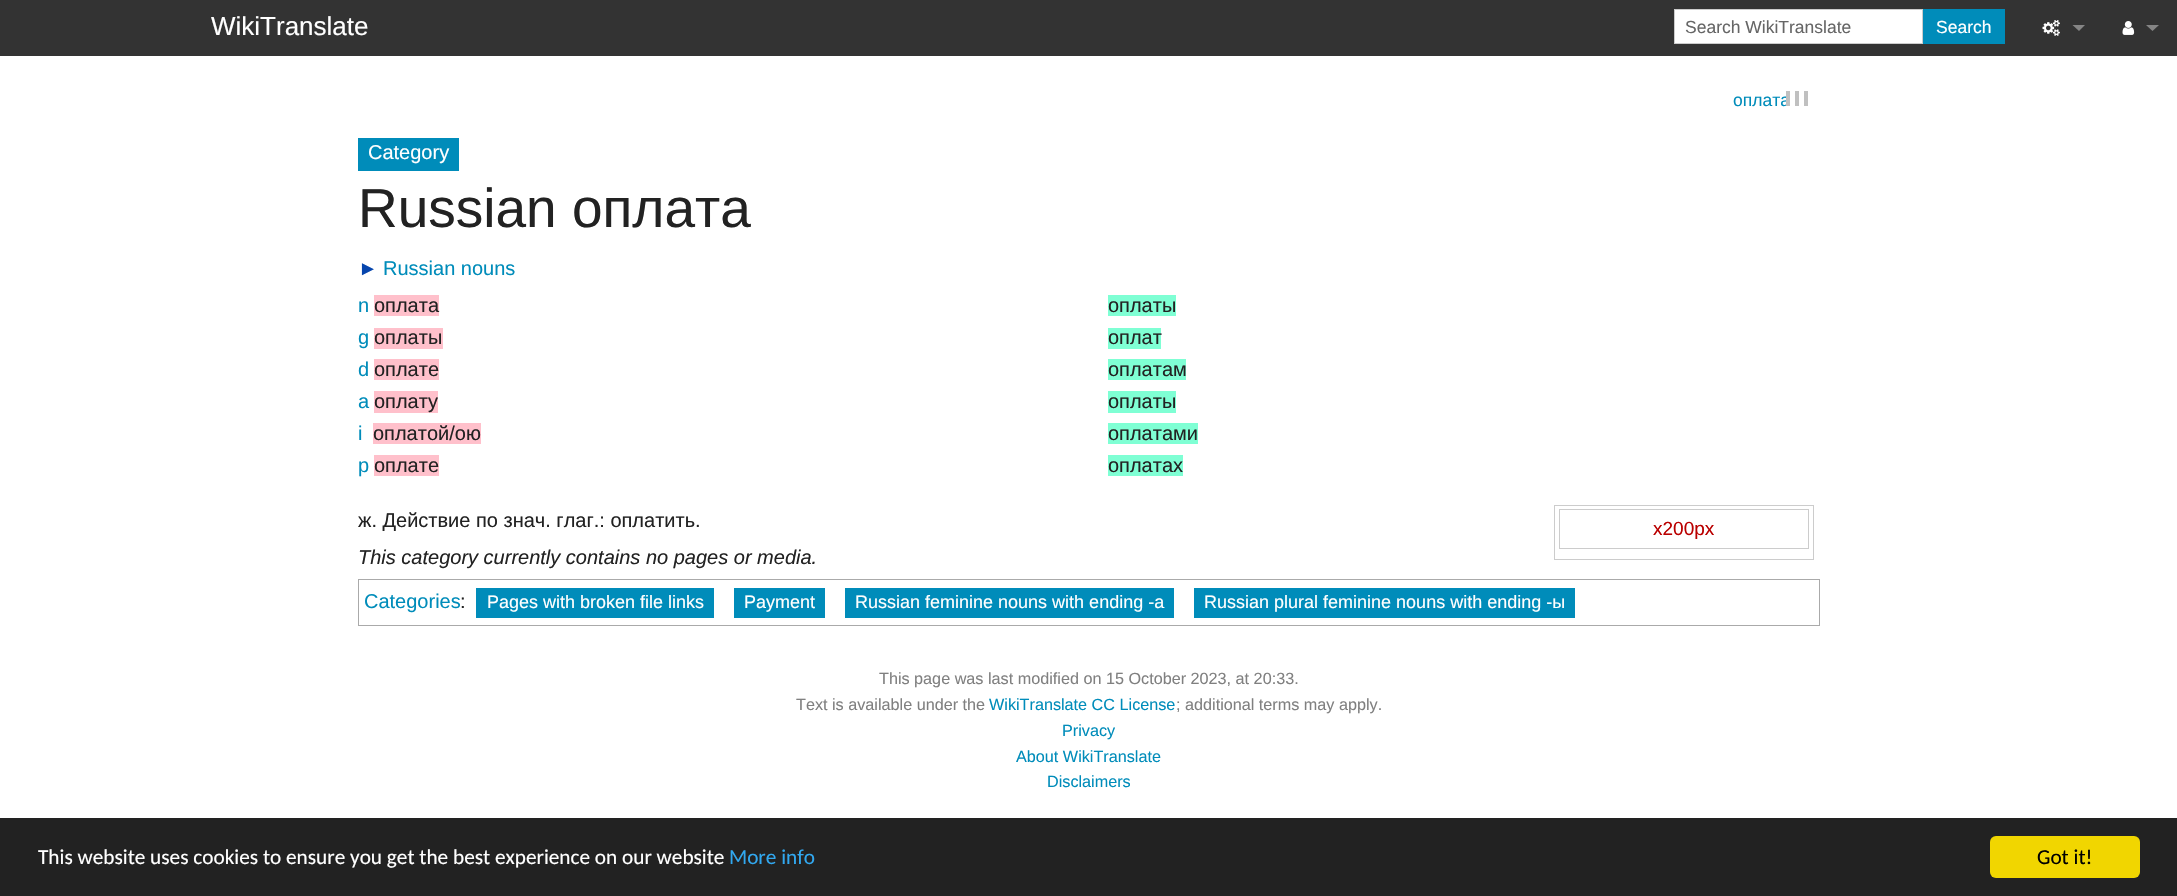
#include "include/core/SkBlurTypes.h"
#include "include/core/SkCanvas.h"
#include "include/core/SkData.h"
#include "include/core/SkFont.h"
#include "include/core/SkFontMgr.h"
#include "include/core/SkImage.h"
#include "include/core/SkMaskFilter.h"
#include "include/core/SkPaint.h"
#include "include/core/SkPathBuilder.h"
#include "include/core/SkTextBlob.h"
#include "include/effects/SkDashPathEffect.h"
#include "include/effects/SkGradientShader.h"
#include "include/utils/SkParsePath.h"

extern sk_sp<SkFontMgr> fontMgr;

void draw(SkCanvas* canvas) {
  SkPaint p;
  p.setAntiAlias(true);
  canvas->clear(SK_ColorWHITE);
  p.setColor(SkColorSetRGB(51, 51, 51));
  canvas->drawRect(SkRect::MakeLTRB(0, 0, 2177, 56), p);
  p.setColor(SK_ColorWHITE);
  canvas->drawRect(SkRect::MakeLTRB(1674.5f, 9.5f, 1922.5f, 43.5f), p);
  p.setStyle(SkPaint::kStroke_Style);
  p.setStrokeWidth(1);
  p.setColor(SkColorSetRGB(204, 204, 204));
  canvas->drawRect(SkRect::MakeLTRB(1674.5f, 9.5f, 1922.5f, 43.5f), p);
  p.setStyle(SkPaint::kFill_Style);
  p.setColor(SkColorSetRGB(0, 140, 186));
  canvas->drawRect(SkRect::MakeLTRB(1923, 9, 2005, 44), p);
  canvas->drawImageRect(SkImages::DeferredFromEncodedData(SkData::MakeFromFileName("images/1.png")), SkRect::MakeLTRB(2042, 20, 2060, 36), SkSamplingOptions());
  p.setColor(SkColorSetRGB(133, 133, 133));
  canvas->drawPath(SkPathBuilder().moveTo(2072.5f, 25).lineTo(2085, 25).lineTo(2079, 31).close().detach(), p);
  canvas->drawImageRect(SkImages::DeferredFromEncodedData(SkData::MakeFromFileName("images/2.png")), SkRect::MakeLTRB(2122, 21, 2135, 35), SkSamplingOptions());
  canvas->drawPath(SkPathBuilder().moveTo(2146, 25).lineTo(2159, 25).lineTo(2152.5f, 31).close().detach(), p);
  p.setColor(SkColorSetRGB(192, 192, 192));
  canvas->drawRect(SkRect::MakeLTRB(1795, 91, 1799, 106), p);
  canvas->drawRect(SkRect::MakeLTRB(1804, 91, 1808, 106), p);
  p.setColor(SkColorSetRGB(0, 140, 186));
  canvas->drawRect(SkRect::MakeLTRB(358, 138, 459, 171), p);
  p.setColor(SkColorSetRGB(255, 192, 203));
  canvas->drawRect(SkRect::MakeLTRB(374, 295, 439, 316), p);
  canvas->drawRect(SkRect::MakeLTRB(374, 328, 443, 349), p);
  canvas->drawRect(SkRect::MakeLTRB(374, 359, 439, 380), p);
  canvas->drawRect(SkRect::MakeLTRB(374, 391, 438, 413), p);
  canvas->drawRect(SkRect::MakeLTRB(373, 423, 481, 444), p);
  canvas->drawRect(SkRect::MakeLTRB(374, 455, 439, 476), p);
  p.setColor(SkColorSetRGB(127, 255, 212));
  canvas->drawRect(SkRect::MakeLTRB(1108, 295, 1176, 316), p);
  canvas->drawRect(SkRect::MakeLTRB(1108, 328, 1161, 349), p);
  canvas->drawRect(SkRect::MakeLTRB(1108, 359, 1186, 380), p);
  canvas->drawRect(SkRect::MakeLTRB(1108, 391, 1176, 413), p);
  canvas->drawRect(SkRect::MakeLTRB(1108, 423, 1198, 444), p);
  canvas->drawRect(SkRect::MakeLTRB(1108, 455, 1183, 476), p);
  p.setStyle(SkPaint::kStroke_Style);
  p.setColor(SkColorSetRGB(204, 204, 204));
  canvas->drawRect(SkRect::MakeLTRB(1554.5f, 505.5f, 1813.5f, 559.5f), p);
  canvas->drawRect(SkRect::MakeLTRB(1559.5f, 509.5f, 1808.5f, 548.5f), p);
  p.setColor(SkColorSetRGB(170, 170, 170));
  canvas->drawRect(SkRect::MakeLTRB(358.5f, 579.5f, 1819.5f, 625.5f), p);
  p.setStyle(SkPaint::kFill_Style);
  p.setColor(SkColorSetRGB(0, 140, 186));
  canvas->drawRect(SkRect::MakeLTRB(476, 588, 714, 618), p);
  canvas->drawRect(SkRect::MakeLTRB(734, 588, 825, 618), p);
  canvas->drawRect(SkRect::MakeLTRB(845, 588, 1174, 618), p);
  canvas->drawRect(SkRect::MakeLTRB(1194, 588, 1575, 618), p);
  p.setColor(SkColorSetRGB(34, 34, 34));
  canvas->drawRect(SkRect::MakeLTRB(0, 818, 2177, 896), p);
  p.setColor(SkColorSetRGB(241, 214, 0));
  canvas->drawRoundRect(SkRect::MakeLTRB(1990, 836, 2140, 878), 6, 6, p);
  SkFont font1(fontMgr->matchFamilyStyle("Liberation Sans", SkFontStyle::Normal()), 26);
  font1.setSubpixel(true);
  p.setColor(SK_ColorWHITE);
  canvas->drawString("WikiTranslate", 211, 35, font1, p);
  SkFont font2(fontMgr->matchFamilyStyle("Liberation Sans", SkFontStyle::Normal()), 17.5f);
  font2.setSubpixel(true);
  p.setColor(SkColorSetRGB(102, 102, 102));
  canvas->drawString("Search WikiTranslate", 1685, 33, font2, p);
  p.setColor(SK_ColorWHITE);
  canvas->drawString("Search", 1936, 33, font2, p);
  p.setColor(SkColorSetRGB(0, 140, 186));
  canvas->drawString("оплата", 1733, 106, font2, p);
  p.setColor(SkColorSetRGB(192, 192, 192));
  canvas->drawRect(SkRect::MakeLTRB(1786, 91, 1790, 106), p);
  SkFont font3(fontMgr->matchFamilyStyle("Liberation Sans", SkFontStyle::Normal()), 20);
  font3.setSubpixel(true);
  p.setColor(SK_ColorWHITE);
  canvas->drawString("Category", 368, 159, font3, p);
  SkFont font4(fontMgr->matchFamilyStyle("Liberation Sans", SkFontStyle::Normal()), 55);
  font4.setSubpixel(true);
  p.setColor(SkColorSetRGB(34, 34, 34));
  canvas->drawString("Russian оплата", 358, 227, font4, p);
  p.setColor(SkColorSetRGB(6, 69, 173));
  canvas->drawString("►", 358, 275, font3, p);
  p.setColor(SkColorSetRGB(0, 140, 186));
  canvas->drawString("Russian nouns", 383, 275, font3, p);
  canvas->drawString("n", 358, 312, font3, p);
  p.setColor(SkColorSetRGB(34, 34, 34));
  canvas->drawString("оплата", 374, 312, font3, p);
  p.setColor(SkColorSetRGB(0, 140, 186));
  canvas->drawString("g", 358, 344, font3, p);
  p.setColor(SkColorSetRGB(34, 34, 34));
  canvas->drawString("оплаты", 374, 344, font3, p);
  p.setColor(SkColorSetRGB(0, 140, 186));
  canvas->drawString("d", 358, 376, font3, p);
  p.setColor(SkColorSetRGB(34, 34, 34));
  canvas->drawString("оплате", 374, 376, font3, p);
  p.setColor(SkColorSetRGB(0, 140, 186));
  canvas->drawString("a", 358, 408, font3, p);
  p.setColor(SkColorSetRGB(34, 34, 34));
  canvas->drawString("оплату", 374, 408, font3, p);
  p.setColor(SkColorSetRGB(0, 140, 186));
  canvas->drawString("i", 358, 440, font3, p);
  p.setColor(SkColorSetRGB(34, 34, 34));
  canvas->drawString("оплатой/ою", 373, 440, font3, p);
  p.setColor(SkColorSetRGB(0, 140, 186));
  canvas->drawString("p", 358, 472, font3, p);
  p.setColor(SkColorSetRGB(34, 34, 34));
  canvas->drawString("оплате", 374, 472, font3, p);
  canvas->drawString("оплаты", 1108, 312, font3, p);
  canvas->drawString("оплат", 1108, 344, font3, p);
  canvas->drawString("оплатам", 1108, 376, font3, p);
  canvas->drawString("оплаты", 1108, 408, font3, p);
  canvas->drawString("оплатами", 1108, 440, font3, p);
  canvas->drawString("оплатах", 1108, 472, font3, p);
  canvas->drawString("ж. Действие по знач. глаг.: оплатить.", 358, 527, font3, p);
  SkFont font5(fontMgr->matchFamilyStyle("Liberation Sans", SkFontStyle::Normal()), 19);
  font5.setSubpixel(true);
  p.setColor(SkColorSetRGB(186, 0, 0));
  canvas->drawString("x200px", 1653, 535, font5, p);
  SkFont font6(fontMgr->matchFamilyStyle("Liberation Sans", SkFontStyle::Italic()), 20);
  font6.setSubpixel(true);
  p.setColor(SkColorSetRGB(34, 34, 34));
  canvas->drawString("This category currently contains no pages or media.", 358, 564, font6, p);
  p.setColor(SkColorSetRGB(0, 140, 186));
  canvas->drawString("Categories", 364, 608, font3, p);
  p.setColor(SkColorSetRGB(34, 34, 34));
  canvas->drawString(":", 460, 608, font3, p);
  SkFont font7(fontMgr->matchFamilyStyle("Liberation Sans", SkFontStyle::Normal()), 18);
  font7.setSubpixel(true);
  p.setColor(SK_ColorWHITE);
  canvas->drawString("Pages with broken file links", 487, 608, font7, p);
  canvas->drawString("Payment", 744, 608, font7, p);
  canvas->drawString("Russian feminine nouns with ending -а", 855, 608, font7, p);
  canvas->drawString("Russian plural feminine nouns with ending -ы", 1204, 608, font7, p);
  SkFont font8(fontMgr->matchFamilyStyle("Liberation Sans", SkFontStyle::Normal()), 16.2f);
  font8.setSubpixel(true);
  p.setColor(SkColorSetRGB(128, 128, 128));
  canvas->drawString("This page was last modified on 15 October 2023, at 20:33.", 879, 684, font8, p);
  canvas->drawString("Text is available under the", 796, 710, font8, p);
  p.setColor(SkColorSetRGB(0, 140, 186));
  canvas->drawString("WikiTranslate CC License", 989, 710, font8, p);
  p.setColor(SkColorSetRGB(128, 128, 128));
  canvas->drawString("; additional terms may apply.", 1176, 710, font8, p);
  p.setColor(SkColorSetRGB(0, 140, 186));
  canvas->drawString("Privacy", 1062, 736, font8, p);
  canvas->drawString("About WikiTranslate", 1016, 762, font8, p);
  canvas->drawString("Disclaimers", 1047, 787, font8, p);
  SkFont font9(fontMgr->matchFamilyStyle("Carlito", SkFontStyle::Normal()), 21.25f);
  font9.setSubpixel(true);
  p.setColor(SK_ColorWHITE);
  canvas->drawString("This website uses cookies to ensure you get the best experience on our website", 38, 864, font9, p);
  p.setColor(SkColorSetRGB(49, 168, 240));
  canvas->drawString("More info", 729, 864, font9, p);
  p.setColor(SK_ColorBLACK);
  canvas->drawString("Got it!", 2037, 864, font9, p);
}
